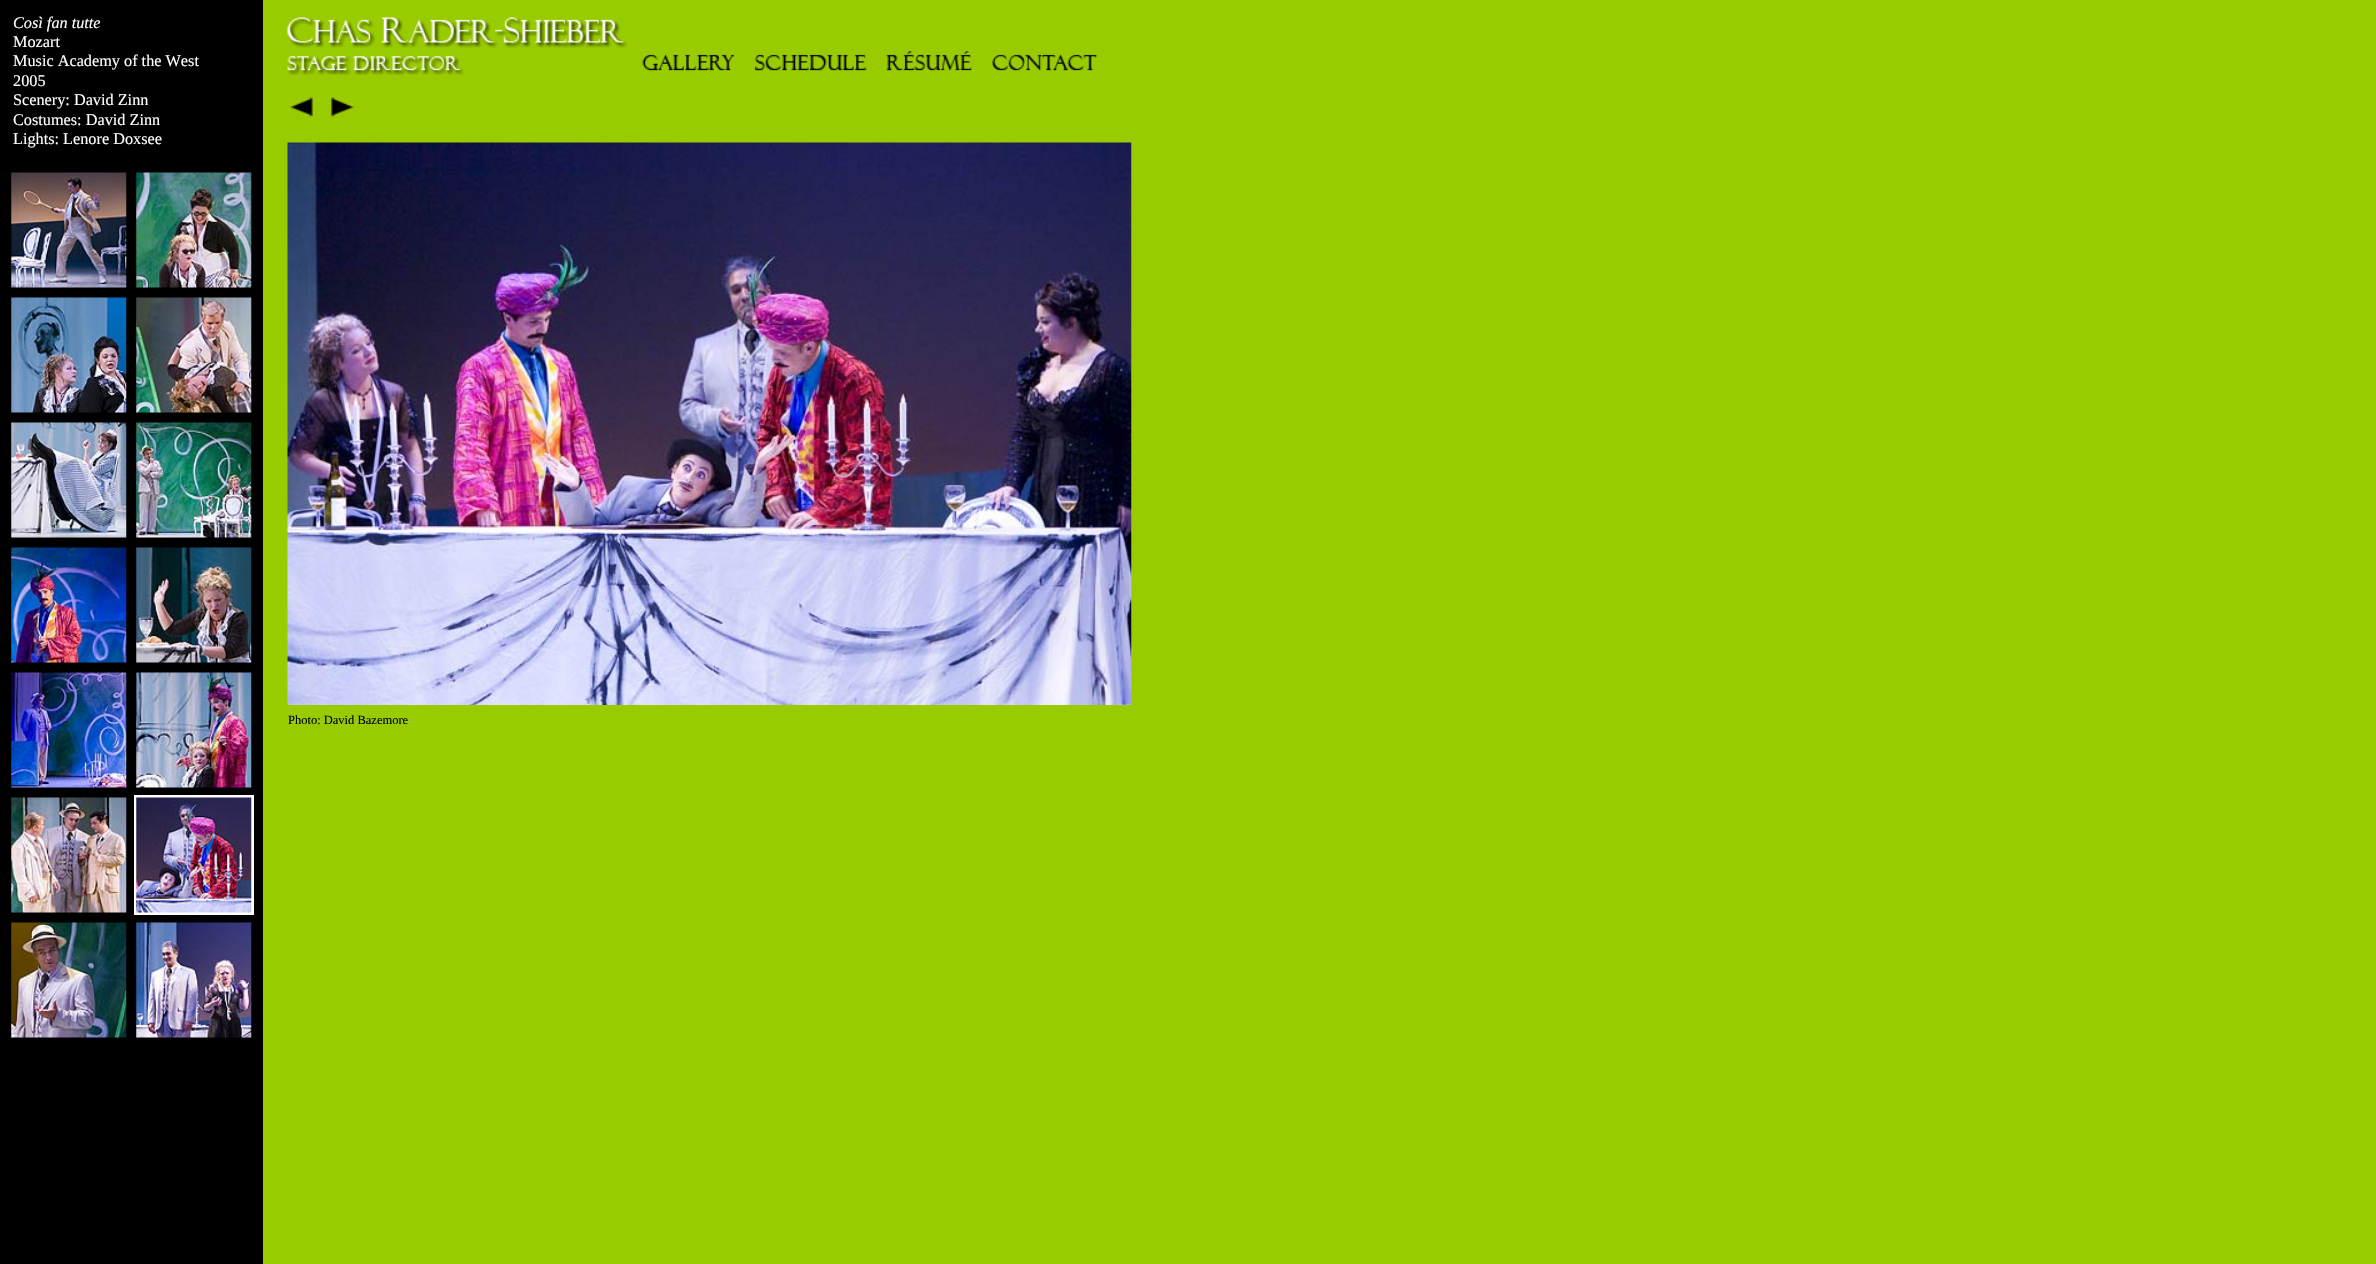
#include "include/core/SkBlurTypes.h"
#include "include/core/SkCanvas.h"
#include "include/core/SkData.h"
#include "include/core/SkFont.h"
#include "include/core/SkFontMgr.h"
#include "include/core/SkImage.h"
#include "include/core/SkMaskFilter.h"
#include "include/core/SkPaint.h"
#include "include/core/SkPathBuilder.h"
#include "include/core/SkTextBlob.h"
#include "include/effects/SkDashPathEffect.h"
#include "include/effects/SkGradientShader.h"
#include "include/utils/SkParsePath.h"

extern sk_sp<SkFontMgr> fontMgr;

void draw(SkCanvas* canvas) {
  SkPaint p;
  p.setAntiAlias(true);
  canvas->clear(SkColorSetRGB(153, 204, 0));
  p.setColor(SK_ColorBLACK);
  canvas->drawRect(SkRect::MakeLTRB(0, 0, 263, 1264), p);
  canvas->drawImageRect(SkImages::DeferredFromEncodedData(SkData::MakeFromFileName("images/1.png")), SkRect::MakeLTRB(11, 172, 127, 288), SkSamplingOptions());
  canvas->drawImageRect(SkImages::DeferredFromEncodedData(SkData::MakeFromFileName("images/2.png")), SkRect::MakeLTRB(136, 172, 252, 288), SkSamplingOptions());
  canvas->drawImageRect(SkImages::DeferredFromEncodedData(SkData::MakeFromFileName("images/3.png")), SkRect::MakeLTRB(11, 297, 127, 413), SkSamplingOptions());
  canvas->drawImageRect(SkImages::DeferredFromEncodedData(SkData::MakeFromFileName("images/4.png")), SkRect::MakeLTRB(136, 297, 252, 413), SkSamplingOptions());
  canvas->drawImageRect(SkImages::DeferredFromEncodedData(SkData::MakeFromFileName("images/5.png")), SkRect::MakeLTRB(11, 422, 127, 538), SkSamplingOptions());
  canvas->drawImageRect(SkImages::DeferredFromEncodedData(SkData::MakeFromFileName("images/6.png")), SkRect::MakeLTRB(136, 422, 252, 538), SkSamplingOptions());
  canvas->drawImageRect(SkImages::DeferredFromEncodedData(SkData::MakeFromFileName("images/7.png")), SkRect::MakeLTRB(11, 547, 127, 663), SkSamplingOptions());
  canvas->drawImageRect(SkImages::DeferredFromEncodedData(SkData::MakeFromFileName("images/8.png")), SkRect::MakeLTRB(136, 547, 252, 663), SkSamplingOptions());
  canvas->drawImageRect(SkImages::DeferredFromEncodedData(SkData::MakeFromFileName("images/9.png")), SkRect::MakeLTRB(11, 672, 127, 788), SkSamplingOptions());
  canvas->drawImageRect(SkImages::DeferredFromEncodedData(SkData::MakeFromFileName("images/10.png")), SkRect::MakeLTRB(136, 672, 252, 788), SkSamplingOptions());
  canvas->drawImageRect(SkImages::DeferredFromEncodedData(SkData::MakeFromFileName("images/11.png")), SkRect::MakeLTRB(11, 797, 127, 913), SkSamplingOptions());
  p.setStyle(SkPaint::kStroke_Style);
  p.setStrokeWidth(3);
  p.setColor(SK_ColorWHITE);
  canvas->drawRect(SkRect::MakeLTRB(135.5f, 796.5f, 252.5f, 913.5f), p);
  canvas->drawImageRect(SkImages::DeferredFromEncodedData(SkData::MakeFromFileName("images/12.png")), SkRect::MakeLTRB(136, 797, 252, 913), SkSamplingOptions());
  canvas->drawImageRect(SkImages::DeferredFromEncodedData(SkData::MakeFromFileName("images/13.png")), SkRect::MakeLTRB(11, 922, 127, 1038), SkSamplingOptions());
  canvas->drawImageRect(SkImages::DeferredFromEncodedData(SkData::MakeFromFileName("images/14.png")), SkRect::MakeLTRB(136, 922, 252, 1038), SkSamplingOptions());
  canvas->drawImageRect(SkImages::DeferredFromEncodedData(SkData::MakeFromFileName("images/15.png")), SkRect::MakeLTRB(287, 17, 628, 75), SkSamplingOptions());
  canvas->drawImageRect(SkImages::DeferredFromEncodedData(SkData::MakeFromFileName("images/16.png")), SkRect::MakeLTRB(642, 54, 734, 71), SkSamplingOptions());
  canvas->drawImageRect(SkImages::DeferredFromEncodedData(SkData::MakeFromFileName("images/17.png")), SkRect::MakeLTRB(754, 54, 867, 71), SkSamplingOptions());
  canvas->drawImageRect(SkImages::DeferredFromEncodedData(SkData::MakeFromFileName("images/18.png")), SkRect::MakeLTRB(886, 51, 972, 71), SkSamplingOptions());
  canvas->drawImageRect(SkImages::DeferredFromEncodedData(SkData::MakeFromFileName("images/19.png")), SkRect::MakeLTRB(992, 54, 1098, 71), SkSamplingOptions());
  canvas->drawImageRect(SkImages::DeferredFromEncodedData(SkData::MakeFromFileName("images/20.png")), SkRect::MakeLTRB(290, 97, 313, 117), SkSamplingOptions());
  canvas->drawImageRect(SkImages::DeferredFromEncodedData(SkData::MakeFromFileName("images/21.png")), SkRect::MakeLTRB(331, 97, 354, 117), SkSamplingOptions());
  canvas->drawImageRect(SkImages::DeferredFromEncodedData(SkData::MakeFromFileName("images/22.png")), SkRect::MakeLTRB(287, 142, 1132, 705), SkSamplingOptions());
  SkFont font1(fontMgr->matchFamilyStyle("Liberation Serif", SkFontStyle::Italic()), 16.25f);
  font1.setSubpixel(true);
  p.setStyle(SkPaint::kFill_Style);
  canvas->drawString("Così fan tutte", 13, 28, font1, p);
  SkFont font2(fontMgr->matchFamilyStyle("Liberation Serif", SkFontStyle::Normal()), 16.25f);
  font2.setSubpixel(true);
  canvas->drawString("Mozart", 13, 47, font2, p);
  canvas->drawString("Music Academy of the West", 13, 66, font2, p);
  canvas->drawString("2005", 13, 86, font2, p);
  canvas->drawString("Scenery: David Zinn", 13, 105, font2, p);
  canvas->drawString("Costumes: David Zinn", 13, 125, font2, p);
  canvas->drawString("Lights: Lenore Doxsee", 13, 144, font2, p);
  SkFont font3(fontMgr->matchFamilyStyle("Liberation Serif", SkFontStyle::Normal()), 12.5f);
  font3.setSubpixel(true);
  p.setColor(SK_ColorBLACK);
  canvas->drawString("Photo: David Bazemore", 288, 724, font3, p);
}
